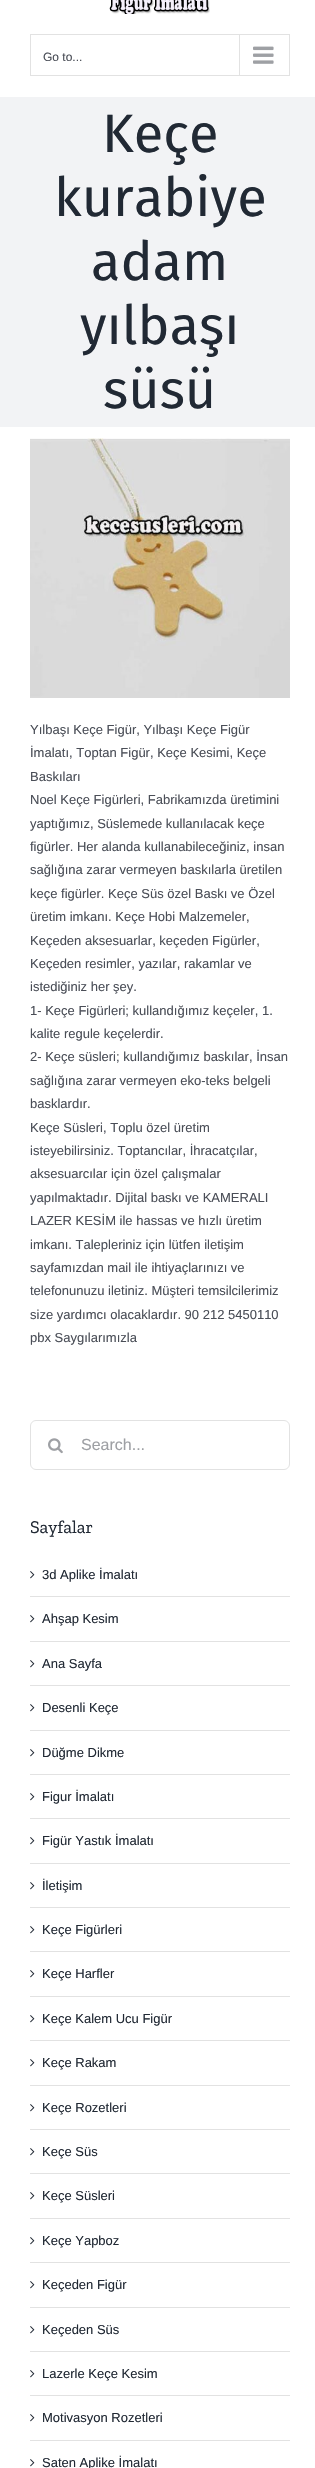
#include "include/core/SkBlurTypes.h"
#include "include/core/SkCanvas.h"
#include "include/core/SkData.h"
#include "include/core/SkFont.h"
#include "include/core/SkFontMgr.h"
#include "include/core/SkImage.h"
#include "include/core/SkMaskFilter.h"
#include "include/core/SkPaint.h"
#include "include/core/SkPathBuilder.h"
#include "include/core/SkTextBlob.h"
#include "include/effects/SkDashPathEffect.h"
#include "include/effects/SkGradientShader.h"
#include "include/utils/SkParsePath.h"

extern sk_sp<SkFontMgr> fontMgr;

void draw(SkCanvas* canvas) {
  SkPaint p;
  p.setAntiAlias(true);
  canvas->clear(SK_ColorWHITE);
  canvas->drawImageRect(SkImages::DeferredFromEncodedData(SkData::MakeFromFileName("images/1.png")), SkRect::MakeLTRB(109, 0, 210, 14), SkSamplingOptions());
  p.setStyle(SkPaint::kStroke_Style);
  p.setStrokeWidth(1);
  p.setColor(SkColorSetRGB(226, 226, 226));
  canvas->drawRect(SkRect::MakeLTRB(30.5f, 34.5f, 289.5f, 75.5f), p);
  p.setStyle(SkPaint::kFill_Style);
  canvas->drawRect(SkRect::MakeLTRB(239, 35, 240, 75), p);
  canvas->drawImageRect(SkImages::DeferredFromEncodedData(SkData::MakeFromFileName("images/2.png")), SkRect::MakeLTRB(253, 46, 274, 64), SkSamplingOptions());
  p.setColor(SkColorSetRGB(242, 243, 245));
  canvas->drawRect(SkRect::MakeLTRB(0, 97, 315, 427), p);
  canvas->drawImageRect(SkImages::DeferredFromEncodedData(SkData::MakeFromFileName("images/3.png")), SkRect::MakeLTRB(30, 438, 290, 698), SkSamplingOptions());
  p.setStyle(SkPaint::kStroke_Style);
  p.setColor(SkColorSetRGB(226, 226, 226));
  canvas->drawRoundRect(SkRect::MakeLTRB(30.5f, 1420.5f, 289.5f, 1469.5f), 5.5f, 5.5f, p);
  canvas->drawImageRect(SkImages::DeferredFromEncodedData(SkData::MakeFromFileName("images/4.png")), SkRect::MakeLTRB(48, 1438, 63, 1454), SkSamplingOptions());
  p.setStyle(SkPaint::kFill_Style);
  canvas->drawRect(SkRect::MakeLTRB(30, 1596, 290, 1597), p);
  canvas->drawImageRect(SkImages::DeferredFromEncodedData(SkData::MakeFromFileName("images/5.png")), SkRect::MakeLTRB(30, 1571, 35, 1579), SkSamplingOptions());
  canvas->drawRect(SkRect::MakeLTRB(30, 1641, 290, 1642), p);
  canvas->drawImageRect(SkImages::DeferredFromEncodedData(SkData::MakeFromFileName("images/5.png")), SkRect::MakeLTRB(30, 1615, 35, 1623), SkSamplingOptions());
  canvas->drawRect(SkRect::MakeLTRB(30, 1685, 290, 1686), p);
  canvas->drawImageRect(SkImages::DeferredFromEncodedData(SkData::MakeFromFileName("images/5.png")), SkRect::MakeLTRB(30, 1660, 35, 1668), SkSamplingOptions());
  canvas->drawRect(SkRect::MakeLTRB(30, 1730, 290, 1731), p);
  canvas->drawImageRect(SkImages::DeferredFromEncodedData(SkData::MakeFromFileName("images/5.png")), SkRect::MakeLTRB(30, 1704, 35, 1712), SkSamplingOptions());
  canvas->drawRect(SkRect::MakeLTRB(30, 1774, 290, 1775), p);
  canvas->drawImageRect(SkImages::DeferredFromEncodedData(SkData::MakeFromFileName("images/5.png")), SkRect::MakeLTRB(30, 1749, 35, 1757), SkSamplingOptions());
  canvas->drawRect(SkRect::MakeLTRB(30, 1818, 290, 1819), p);
  canvas->drawImageRect(SkImages::DeferredFromEncodedData(SkData::MakeFromFileName("images/5.png")), SkRect::MakeLTRB(30, 1793, 35, 1801), SkSamplingOptions());
  canvas->drawRect(SkRect::MakeLTRB(30, 1863, 290, 1864), p);
  canvas->drawImageRect(SkImages::DeferredFromEncodedData(SkData::MakeFromFileName("images/5.png")), SkRect::MakeLTRB(30, 1837, 35, 1845), SkSamplingOptions());
  canvas->drawRect(SkRect::MakeLTRB(30, 1907, 290, 1908), p);
  canvas->drawImageRect(SkImages::DeferredFromEncodedData(SkData::MakeFromFileName("images/5.png")), SkRect::MakeLTRB(30, 1882, 35, 1890), SkSamplingOptions());
  canvas->drawRect(SkRect::MakeLTRB(30, 1951, 290, 1952), p);
  canvas->drawImageRect(SkImages::DeferredFromEncodedData(SkData::MakeFromFileName("images/5.png")), SkRect::MakeLTRB(30, 1926, 35, 1934), SkSamplingOptions());
  canvas->drawRect(SkRect::MakeLTRB(30, 1996, 290, 1997), p);
  canvas->drawImageRect(SkImages::DeferredFromEncodedData(SkData::MakeFromFileName("images/5.png")), SkRect::MakeLTRB(30, 1970, 35, 1978), SkSamplingOptions());
  canvas->drawRect(SkRect::MakeLTRB(30, 2040, 290, 2041), p);
  canvas->drawImageRect(SkImages::DeferredFromEncodedData(SkData::MakeFromFileName("images/5.png")), SkRect::MakeLTRB(30, 2015, 35, 2023), SkSamplingOptions());
  canvas->drawRect(SkRect::MakeLTRB(30, 2085, 290, 2086), p);
  canvas->drawImageRect(SkImages::DeferredFromEncodedData(SkData::MakeFromFileName("images/5.png")), SkRect::MakeLTRB(30, 2059, 35, 2067), SkSamplingOptions());
  canvas->drawRect(SkRect::MakeLTRB(30, 2129, 290, 2130), p);
  canvas->drawImageRect(SkImages::DeferredFromEncodedData(SkData::MakeFromFileName("images/5.png")), SkRect::MakeLTRB(30, 2104, 35, 2112), SkSamplingOptions());
  canvas->drawRect(SkRect::MakeLTRB(30, 2173, 290, 2174), p);
  canvas->drawImageRect(SkImages::DeferredFromEncodedData(SkData::MakeFromFileName("images/5.png")), SkRect::MakeLTRB(30, 2148, 35, 2156), SkSamplingOptions());
  canvas->drawRect(SkRect::MakeLTRB(30, 2218, 290, 2219), p);
  canvas->drawImageRect(SkImages::DeferredFromEncodedData(SkData::MakeFromFileName("images/5.png")), SkRect::MakeLTRB(30, 2192, 35, 2200), SkSamplingOptions());
  canvas->drawRect(SkRect::MakeLTRB(30, 2262, 290, 2263), p);
  canvas->drawImageRect(SkImages::DeferredFromEncodedData(SkData::MakeFromFileName("images/5.png")), SkRect::MakeLTRB(30, 2237, 35, 2245), SkSamplingOptions());
  canvas->drawRect(SkRect::MakeLTRB(30, 2307, 290, 2308), p);
  canvas->drawImageRect(SkImages::DeferredFromEncodedData(SkData::MakeFromFileName("images/5.png")), SkRect::MakeLTRB(30, 2281, 35, 2289), SkSamplingOptions());
  canvas->drawRect(SkRect::MakeLTRB(30, 2351, 290, 2352), p);
  canvas->drawImageRect(SkImages::DeferredFromEncodedData(SkData::MakeFromFileName("images/5.png")), SkRect::MakeLTRB(30, 2326, 35, 2334), SkSamplingOptions());
  canvas->drawRect(SkRect::MakeLTRB(30, 2395, 290, 2396), p);
  canvas->drawImageRect(SkImages::DeferredFromEncodedData(SkData::MakeFromFileName("images/5.png")), SkRect::MakeLTRB(30, 2370, 35, 2378), SkSamplingOptions());
  canvas->drawRect(SkRect::MakeLTRB(30, 2440, 290, 2441), p);
  canvas->drawImageRect(SkImages::DeferredFromEncodedData(SkData::MakeFromFileName("images/5.png")), SkRect::MakeLTRB(30, 2414, 35, 2422), SkSamplingOptions());
  canvas->drawImageRect(SkImages::DeferredFromEncodedData(SkData::MakeFromFileName("images/5.png")), SkRect::MakeLTRB(30, 2459, 35, 2467), SkSamplingOptions());
  SkFont font1(fontMgr->matchFamilyStyle("Liberation Sans", SkFontStyle::Normal()), 12);
  font1.setSubpixel(true);
  p.setColor(SkColorSetRGB(74, 78, 87));
  canvas->drawString("Go to...", 43, 61, font1, p);
  SkFont font2(fontMgr->matchFamilyStyle("Fira Sans", SkFontStyle::Normal()), 54);
  font2.setSubpixel(true);
  p.setColor(SkColorSetRGB(33, 41, 52));
  canvas->drawString("Keçe", 102, 152, font2, p);
  canvas->drawString("kurabiye", 54, 216, font2, p);
  canvas->drawString("adam", 91, 280, font2, p);
  canvas->drawString("yılbaşı", 80, 344, font2, p);
  canvas->drawString("süsü", 103, 408, font2, p);
  SkFont font3(fontMgr->matchFamilyStyle("Liberation Sans", SkFontStyle::Normal()), 13);
  font3.setSubpixel(true);
  p.setColor(SkColorSetRGB(74, 78, 87));
  canvas->drawString("Yılbaşı Keçe Figür, Yılbaşı Keçe Figür", 30, 734, font3, p);
  canvas->drawString("İmalatı, Toptan Figür, Keçe Kesimi, Keçe", 30, 757, font3, p);
  canvas->drawString("Baskıları", 30, 781, font3, p);
  canvas->drawString("Noel Keçe Figürleri, Fabrikamızda üretimini", 30, 804, font3, p);
  canvas->drawString("yaptığımız, Süslemede kullanılacak keçe", 30, 828, font3, p);
  canvas->drawString("figürler. Her alanda kullanabileceğiniz, insan", 30, 851, font3, p);
  canvas->drawString("sağlığına zarar vermeyen baskılarla üretilen", 30, 874, font3, p);
  canvas->drawString("keçe figürler. Keçe Süs özel Baskı ve Özel", 30, 898, font3, p);
  canvas->drawString("üretim imkanı. Keçe Hobi Malzemeler,", 30, 921, font3, p);
  canvas->drawString("Keçeden aksesuarlar, keçeden Figürler,", 30, 945, font3, p);
  canvas->drawString("Keçeden resimler, yazılar, rakamlar ve", 30, 968, font3, p);
  canvas->drawString("istediğiniz her şey.", 30, 991, font3, p);
  canvas->drawString("1- Keçe Figürleri; kullandığımız keçeler, 1.", 30, 1015, font3, p);
  canvas->drawString("kalite regule keçelerdir.", 30, 1038, font3, p);
  canvas->drawString("2- Keçe süsleri; kullandığımız baskılar, İnsan", 30, 1061, font3, p);
  canvas->drawString("sağlığına zarar vermeyen eko-teks belgeli", 30, 1085, font3, p);
  canvas->drawString("basklardır.", 30, 1108, font3, p);
  canvas->drawString("Keçe Süsleri, Toplu özel üretim", 30, 1132, font3, p);
  canvas->drawString("isteyebilirsiniz. Toptancılar, İhracatçılar,", 30, 1155, font3, p);
  canvas->drawString("aksesuarcılar için özel çalışmalar", 30, 1178, font3, p);
  canvas->drawString("yapılmaktadır. Dijital baskı ve KAMERALI", 30, 1202, font3, p);
  canvas->drawString("LAZER KESİM ile hassas ve hızlı üretim", 30, 1225, font3, p);
  canvas->drawString("imkanı. Talepleriniz için lütfen iletişim", 30, 1249, font3, p);
  canvas->drawString("sayfamızdan mail ile ihtiyaçlarınızı ve", 30, 1272, font3, p);
  canvas->drawString("telefonunuzu iletiniz. Müşteri temsilcilerimiz", 30, 1295, font3, p);
  canvas->drawString("size yardımcı olacaklardır. 90 212 5450110", 30, 1319, font3, p);
  canvas->drawString("pbx Saygılarımızla", 30, 1342, font3, p);
  SkFont font4(fontMgr->matchFamilyStyle("Liberation Sans", SkFontStyle::Normal()), 16);
  font4.setSubpixel(true);
  p.setColor(SkColorSetRGB(158, 160, 164));
  canvas->drawString("Search...", 81, 1450, font4, p);
  SkFont font5(fontMgr->matchFamilyStyle("Zilla Slab", SkFontStyle::Normal()), 18);
  font5.setSubpixel(true);
  p.setColor(SkColorSetRGB(33, 41, 52));
  canvas->drawString("Sayfalar", 30, 1533, font5, p);
  canvas->drawString("3d Aplike İmalatı", 42, 1579, font3, p);
  canvas->drawString("Ahşap Kesim", 42, 1623, font3, p);
  canvas->drawString("Ana Sayfa", 42, 1668, font3, p);
  canvas->drawString("Desenli Keçe", 42, 1712, font3, p);
  canvas->drawString("Düğme Dikme", 42, 1757, font3, p);
  canvas->drawString("Figur İmalatı", 42, 1801, font3, p);
  canvas->drawString("Figür Yastık İmalatı", 42, 1845, font3, p);
  canvas->drawString("İletişim", 42, 1890, font3, p);
  canvas->drawString("Keçe Figürleri", 42, 1934, font3, p);
  canvas->drawString("Keçe Harfler", 42, 1978, font3, p);
  canvas->drawString("Keçe Kalem Ucu Figür", 42, 2023, font3, p);
  canvas->drawString("Keçe Rakam", 42, 2067, font3, p);
  canvas->drawString("Keçe Rozetleri", 42, 2112, font3, p);
  canvas->drawString("Keçe Süs", 42, 2156, font3, p);
  canvas->drawString("Keçe Süsleri", 42, 2200, font3, p);
  canvas->drawString("Keçe Yapboz", 42, 2245, font3, p);
  canvas->drawString("Keçeden Figür", 42, 2289, font3, p);
  canvas->drawString("Keçeden Süs", 42, 2334, font3, p);
  canvas->drawString("Lazerle Keçe Kesim", 42, 2378, font3, p);
  canvas->drawString("Motivasyon Rozetleri", 42, 2422, font3, p);
  canvas->drawString("Saten Aplike İmalatı", 42, 2467, font3, p);
}
